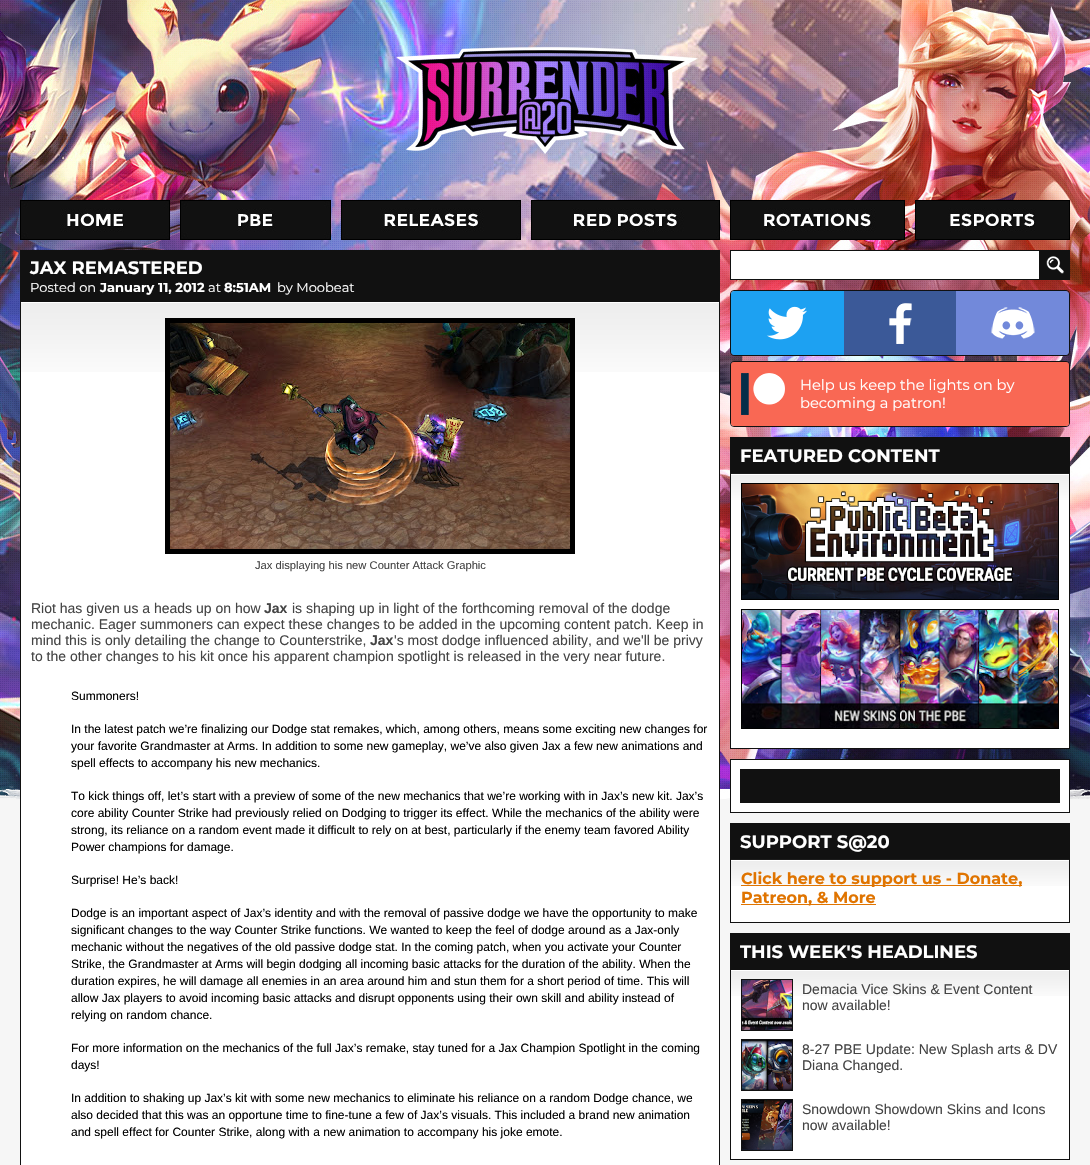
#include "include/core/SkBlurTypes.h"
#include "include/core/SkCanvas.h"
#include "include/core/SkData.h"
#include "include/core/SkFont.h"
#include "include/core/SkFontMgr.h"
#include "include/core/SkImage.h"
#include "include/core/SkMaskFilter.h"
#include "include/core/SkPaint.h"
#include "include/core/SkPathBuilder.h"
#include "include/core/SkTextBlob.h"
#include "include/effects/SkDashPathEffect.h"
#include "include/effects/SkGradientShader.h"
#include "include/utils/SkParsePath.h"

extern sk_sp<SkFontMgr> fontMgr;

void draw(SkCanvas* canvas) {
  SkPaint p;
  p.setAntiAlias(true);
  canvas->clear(SkColorSetRGB(246, 246, 246));
  canvas->drawImageRect(SkImages::DeferredFromEncodedData(SkData::MakeFromFileName("images/1.png")), SkRect::MakeLTRB(0, 0, 1090, 800), SkSamplingOptions());
  canvas->drawImageRect(SkImages::DeferredFromEncodedData(SkData::MakeFromFileName("images/2.png")), SkRect::MakeLTRB(20, 200, 170, 240), SkSamplingOptions());
  canvas->drawImageRect(SkImages::DeferredFromEncodedData(SkData::MakeFromFileName("images/3.png")), SkRect::MakeLTRB(180, 200, 331, 240), SkSamplingOptions());
  canvas->drawImageRect(SkImages::DeferredFromEncodedData(SkData::MakeFromFileName("images/4.png")), SkRect::MakeLTRB(341, 200, 521, 240), SkSamplingOptions());
  canvas->drawImageRect(SkImages::DeferredFromEncodedData(SkData::MakeFromFileName("images/5.png")), SkRect::MakeLTRB(531, 200, 720, 240), SkSamplingOptions());
  canvas->drawImageRect(SkImages::DeferredFromEncodedData(SkData::MakeFromFileName("images/6.png")), SkRect::MakeLTRB(730, 200, 905, 240), SkSamplingOptions());
  canvas->drawImageRect(SkImages::DeferredFromEncodedData(SkData::MakeFromFileName("images/7.png")), SkRect::MakeLTRB(915, 200, 1070, 240), SkSamplingOptions());
  p.setColor(SkColorSetRGB(17, 17, 17));
  canvas->drawRect(SkRect::MakeLTRB(20, 250, 720, 300), p);
  p.setColor(SK_ColorWHITE);
  canvas->drawRect(SkRect::MakeLTRB(21, 372, 719, 1165), p);
  canvas->drawImageRect(SkImages::DeferredFromEncodedData(SkData::MakeFromFileName("images/8.png")), SkRect::MakeLTRB(21, 301, 719, 372), SkSamplingOptions());
  p.setStyle(SkPaint::kStroke_Style);
  p.setStrokeWidth(1);
  p.setColor(SkColorSetRGB(17, 17, 17));
  canvas->drawRect(SkRect::MakeLTRB(20.5f, 300.5f, 719.5f, 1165.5f), p);
  p.setStyle(SkPaint::kFill_Style);
  p.setColor(SK_ColorBLACK);
  canvas->drawRect(SkRect::MakeLTRB(165, 318, 575, 554), p);
  canvas->drawImageRect(SkImages::DeferredFromEncodedData(SkData::MakeFromFileName("images/9.png")), SkRect::MakeLTRB(170, 323, 570, 549), SkSamplingOptions());
  p.setColor(SK_ColorWHITE);
  canvas->drawRect(SkRect::MakeLTRB(730.5f, 250.5f, 1039.5f, 279.5f), p);
  p.setStyle(SkPaint::kStroke_Style);
  p.setColor(SkColorSetRGB(17, 17, 17));
  canvas->drawRect(SkRect::MakeLTRB(730.5f, 250.5f, 1039.5f, 279.5f), p);
  canvas->drawImageRect(SkImages::DeferredFromEncodedData(SkData::MakeFromFileName("images/10.png")), SkRect::MakeLTRB(1040, 250, 1070, 280), SkSamplingOptions());
  canvas->drawRoundRect(SkRect::MakeLTRB(730.5f, 290.5f, 1069.5f, 355.5f), 3.5f, 3.5f, p);
  p.setStyle(SkPaint::kFill_Style);
  p.setColor(SkColorSetRGB(29, 161, 242));
  canvas->drawPath(SkPathBuilder().moveTo(734, 291).lineTo(844, 291).lineTo(844, 355).lineTo(734, 355).cubicTo(732.5f, 355, 731, 353.5f, 731, 352).lineTo(731, 294).cubicTo(731, 292.5f, 732.5f, 291, 734, 291).close().detach(), p);
  canvas->drawImageRect(SkImages::DeferredFromEncodedData(SkData::MakeFromFileName("images/11.png")), SkRect::MakeLTRB(767, 306, 807, 340), SkSamplingOptions());
  p.setColor(SkColorSetRGB(59, 89, 152));
  canvas->drawRect(SkRect::MakeLTRB(844, 291, 956, 355), p);
  canvas->drawImageRect(SkImages::DeferredFromEncodedData(SkData::MakeFromFileName("images/12.png")), SkRect::MakeLTRB(889, 303, 912, 344), SkSamplingOptions());
  p.setColor(SkColorSetRGB(114, 137, 218));
  canvas->drawPath(SkPathBuilder().moveTo(956, 291).lineTo(1066, 291).cubicTo(1067.5f, 291, 1069, 292.5f, 1069, 294).lineTo(1069, 352).cubicTo(1069, 353.5f, 1067.5f, 355, 1066, 355).lineTo(956, 355).close().detach(), p);
  canvas->drawImageRect(SkImages::DeferredFromEncodedData(SkData::MakeFromFileName("images/13.png")), SkRect::MakeLTRB(991, 307, 1035, 339), SkSamplingOptions());
  p.setStyle(SkPaint::kStroke_Style);
  p.setColor(SkColorSetRGB(17, 17, 17));
  canvas->drawRoundRect(SkRect::MakeLTRB(730.5f, 361.5f, 1069.5f, 426.5f), 3.5f, 3.5f, p);
  p.setStyle(SkPaint::kFill_Style);
  p.setColor(SkColorSetRGB(249, 104, 84));
  canvas->drawRoundRect(SkRect::MakeLTRB(731, 362, 1069, 426), 3, 3, p);
  canvas->drawImageRect(SkImages::DeferredFromEncodedData(SkData::MakeFromFileName("images/14.png")), SkRect::MakeLTRB(741, 373, 785, 415), SkSamplingOptions());
  p.setColor(SkColorSetRGB(17, 17, 17));
  canvas->drawRect(SkRect::MakeLTRB(730, 437, 1070, 472), p);
  p.setColor(SK_ColorWHITE);
  canvas->drawRect(SkRect::MakeLTRB(731, 500, 1069, 748), p);
  canvas->drawImageRect(SkImages::DeferredFromEncodedData(SkData::MakeFromFileName("images/15.png")), SkRect::MakeLTRB(731, 473, 1069, 500), SkSamplingOptions());
  p.setStyle(SkPaint::kStroke_Style);
  p.setColor(SkColorSetRGB(17, 17, 17));
  canvas->drawRect(SkRect::MakeLTRB(730.5f, 472.5f, 1069.5f, 748.5f), p);
  p.setColor(SK_ColorBLACK);
  canvas->drawRect(SkRect::MakeLTRB(741.5f, 483.5f, 1058.5f, 599.5f), p);
  canvas->drawImageRect(SkImages::DeferredFromEncodedData(SkData::MakeFromFileName("images/16.png")), SkRect::MakeLTRB(742, 484, 1058, 599), SkSamplingOptions());
  canvas->drawRect(SkRect::MakeLTRB(741.5f, 609.5f, 1058.5f, 728.5f), p);
  canvas->drawImageRect(SkImages::DeferredFromEncodedData(SkData::MakeFromFileName("images/17.png")), SkRect::MakeLTRB(742, 610, 1058, 728), SkSamplingOptions());
  p.setStyle(SkPaint::kFill_Style);
  p.setColor(SK_ColorWHITE);
  canvas->drawRect(SkRect::MakeLTRB(730.5f, 759.5f, 1069.5f, 812.5f), p);
  p.setStyle(SkPaint::kStroke_Style);
  p.setColor(SkColorSetRGB(17, 17, 17));
  canvas->drawRect(SkRect::MakeLTRB(730.5f, 759.5f, 1069.5f, 812.5f), p);
  p.setStyle(SkPaint::kFill_Style);
  canvas->drawRect(SkRect::MakeLTRB(740, 769, 1060, 803), p);
  canvas->drawRect(SkRect::MakeLTRB(730, 823, 1070, 858), p);
  p.setColor(SK_ColorWHITE);
  canvas->drawRect(SkRect::MakeLTRB(731, 886, 1069, 922), p);
  canvas->drawImageRect(SkImages::DeferredFromEncodedData(SkData::MakeFromFileName("images/15.png")), SkRect::MakeLTRB(731, 859, 1069, 886), SkSamplingOptions());
  p.setStyle(SkPaint::kStroke_Style);
  p.setColor(SkColorSetRGB(17, 17, 17));
  canvas->drawRect(SkRect::MakeLTRB(730.5f, 858.5f, 1069.5f, 922.5f), p);
  p.setStyle(SkPaint::kFill_Style);
  p.setColor(SkColorSetRGB(224, 116, 0));
  canvas->drawRect(SkRect::MakeLTRB(741, 885, 1022, 886), p);
  canvas->drawRect(SkRect::MakeLTRB(741, 904, 876, 905), p);
  p.setColor(SkColorSetRGB(17, 17, 17));
  canvas->drawRect(SkRect::MakeLTRB(730, 933, 1070, 968), p);
  p.setColor(SK_ColorWHITE);
  canvas->drawRect(SkRect::MakeLTRB(731, 996, 1069, 1159), p);
  canvas->drawImageRect(SkImages::DeferredFromEncodedData(SkData::MakeFromFileName("images/18.png")), SkRect::MakeLTRB(731, 969, 1069, 996), SkSamplingOptions());
  p.setStyle(SkPaint::kStroke_Style);
  p.setColor(SkColorSetRGB(17, 17, 17));
  canvas->drawRect(SkRect::MakeLTRB(730.5f, 968.5f, 1069.5f, 1159.5f), p);
  canvas->drawRect(SkRect::MakeLTRB(741.5f, 979.5f, 792.5f, 1030.5f), p);
  canvas->drawImageRect(SkImages::DeferredFromEncodedData(SkData::MakeFromFileName("images/19.png")), SkRect::MakeLTRB(742, 980, 792, 1030), SkSamplingOptions());
  canvas->drawRect(SkRect::MakeLTRB(741.5f, 1039.5f, 792.5f, 1090.5f), p);
  canvas->drawImageRect(SkImages::DeferredFromEncodedData(SkData::MakeFromFileName("images/20.png")), SkRect::MakeLTRB(742, 1040, 792, 1090), SkSamplingOptions());
  canvas->drawRect(SkRect::MakeLTRB(741.5f, 1099.5f, 792.5f, 1150.5f), p);
  canvas->drawImageRect(SkImages::DeferredFromEncodedData(SkData::MakeFromFileName("images/21.png")), SkRect::MakeLTRB(742, 1100, 792, 1150), SkSamplingOptions());
  SkFont font1(fontMgr->matchFamilyStyle("Montserrat", SkFontStyle::Bold()), 18);
  font1.setSubpixel(true);
  p.setStyle(SkPaint::kFill_Style);
  p.setColor(SK_ColorWHITE);
  canvas->drawString("JAX REMASTERED", 30, 274, font1, p);
  SkFont font2(fontMgr->matchFamilyStyle("Montserrat", SkFontStyle::Normal()), 13);
  font2.setSubpixel(true);
  canvas->drawString("Posted on", 30, 292, font2, p);
  SkFont font3(fontMgr->matchFamilyStyle("Montserrat", SkFontStyle::Bold()), 13);
  font3.setSubpixel(true);
  canvas->drawString("January 11, 2012", 100, 292, font3, p);
  canvas->drawString("at", 208, 292, font2, p);
  canvas->drawString("8:51 AM", 224, 292, font3, p);
  canvas->drawString("by Moobeat", 277, 292, font2, p);
  SkFont font4(fontMgr->matchFamilyStyle("Arimo", SkFontStyle::Normal()), 11.2f);
  font4.setSubpixel(true);
  p.setColor(SkColorSetRGB(68, 68, 68));
  canvas->drawString("Jax displaying his new Counter Attack Graphic", 255, 569, font4, p);
  SkFont font5(fontMgr->matchFamilyStyle("Arimo", SkFontStyle::Normal()), 14);
  font5.setSubpixel(true);
  canvas->drawString("Riot has given us a heads up on how", 31, 613, font5, p);
  SkFont font6(fontMgr->matchFamilyStyle("Arimo", SkFontStyle::Bold()), 14);
  font6.setSubpixel(true);
  canvas->drawString("Jax", 264, 613, font6, p);
  canvas->drawString("is shaping up in light of the forthcoming removal of the dodge", 292, 613, font5, p);
  canvas->drawString("mechanic. Eager summoners can expect these changes to be added in the upcoming content patch. Keep in", 31, 629, font5, p);
  canvas->drawString("mind this is only detailing the change to Counterstrike,", 31, 645, font5, p);
  canvas->drawString("Jax", 370, 645, font6, p);
  canvas->drawString("'s most dodge influenced ability, and we'll be privy", 394, 645, font5, p);
  canvas->drawString("to the other changes to his kit once his apparent champion spotlight is released in the very near future.", 31, 661, font5, p);
  SkFont font7(fontMgr->matchFamilyStyle("Liberation Sans", SkFontStyle::Normal()), 12);
  font7.setSubpixel(true);
  p.setColor(SK_ColorBLACK);
  canvas->drawString("Summoners!", 71, 700, font7, p);
  canvas->drawString("In the latest patch we’re finalizing our Dodge stat remakes, which, among others, means some exciting new changes for", 71, 733, font7, p);
  canvas->drawString("your favorite Grandmaster at Arms. In addition to some new gameplay, we’ve also given Jax a few new animations and", 71, 750, font7, p);
  canvas->drawString("spell effects to accompany his new mechanics.", 71, 767, font7, p);
  canvas->drawString("To kick things off, let’s start with a preview of some of the new mechanics that we’re working with in Jax’s new kit. Jax’s", 71, 800, font7, p);
  canvas->drawString("core ability Counter Strike had previously relied on Dodging to trigger its effect. While the mechanics of the ability were", 71, 817, font7, p);
  canvas->drawString("strong, its reliance on a random event made it difficult to rely on at best, particularly if the enemy team favored Ability", 71, 834, font7, p);
  canvas->drawString("Power champions for damage.", 71, 851, font7, p);
  canvas->drawString("Surprise! He’s back!", 71, 884, font7, p);
  canvas->drawString("Dodge is an important aspect of Jax’s identity and with the removal of passive dodge we have the opportunity to make", 71, 917, font7, p);
  canvas->drawString("significant changes to the way Counter Strike functions. We wanted to keep the feel of dodge around as a Jax-only", 71, 934, font7, p);
  canvas->drawString("mechanic without the negatives of the old passive dodge stat. In the coming patch, when you activate your Counter", 71, 951, font7, p);
  canvas->drawString("Strike, the Grandmaster at Arms will begin dodging all incoming basic attacks for the duration of the ability. When the", 71, 968, font7, p);
  canvas->drawString("duration expires, he will damage all enemies in an area around him and stun them for a short period of time. This will", 71, 985, font7, p);
  canvas->drawString("allow Jax players to avoid incoming basic attacks and disrupt opponents using their own skill and ability instead of", 71, 1002, font7, p);
  canvas->drawString("relying on random chance.", 71, 1019, font7, p);
  canvas->drawString("For more information on the mechanics of the full Jax’s remake, stay tuned for a Jax Champion Spotlight in the coming", 71, 1052, font7, p);
  canvas->drawString("days!", 71, 1069, font7, p);
  canvas->drawString("In addition to shaking up Jax’s kit with some new mechanics to eliminate his reliance on a random Dodge chance, we", 71, 1102, font7, p);
  canvas->drawString("also decided that this was an opportune time to fine-tune a few of Jax’s visuals. This included a brand new animation", 71, 1119, font7, p);
  canvas->drawString("and spell effect for Counter Strike, along with a new animation to accompany his joke emote.", 71, 1136, font7, p);
  SkFont font8(fontMgr->matchFamilyStyle("Montserrat", SkFontStyle::Normal()), 14.7f);
  font8.setSubpixel(true);
  p.setColor(SK_ColorWHITE);
  canvas->drawString("Help us keep the lights on by", 800, 390, font8, p);
  canvas->drawString("becoming a patron!", 800, 408, font8, p);
  canvas->drawString("FEATURED CONTENT", 740, 462, font1, p);
  canvas->drawString("SUPPORT S@20", 740, 848, font1, p);
  SkFont font9(fontMgr->matchFamilyStyle("Montserrat", SkFontStyle::Bold()), 16);
  font9.setSubpixel(true);
  p.setColor(SkColorSetRGB(224, 116, 0));
  canvas->drawString("Click here to support us - Donate,", 741, 884, font9, p);
  canvas->drawString("Patreon, & More", 741, 903, font9, p);
  p.setColor(SK_ColorWHITE);
  canvas->drawString("THIS WEEK'S HEADLINES", 740, 958, font1, p);
  p.setColor(SkColorSetRGB(68, 68, 68));
  canvas->drawString("Demacia Vice Skins & Event Content", 802, 994, font5, p);
  canvas->drawString("now available!", 802, 1010, font5, p);
  canvas->drawString("8-27 PBE Update: New Splash arts & DV", 802, 1054, font5, p);
  canvas->drawString("Diana Changed.", 802, 1070, font5, p);
  canvas->drawString("Snowdown Showdown Skins and Icons", 802, 1114, font5, p);
  canvas->drawString("now available!", 802, 1130, font5, p);
}
